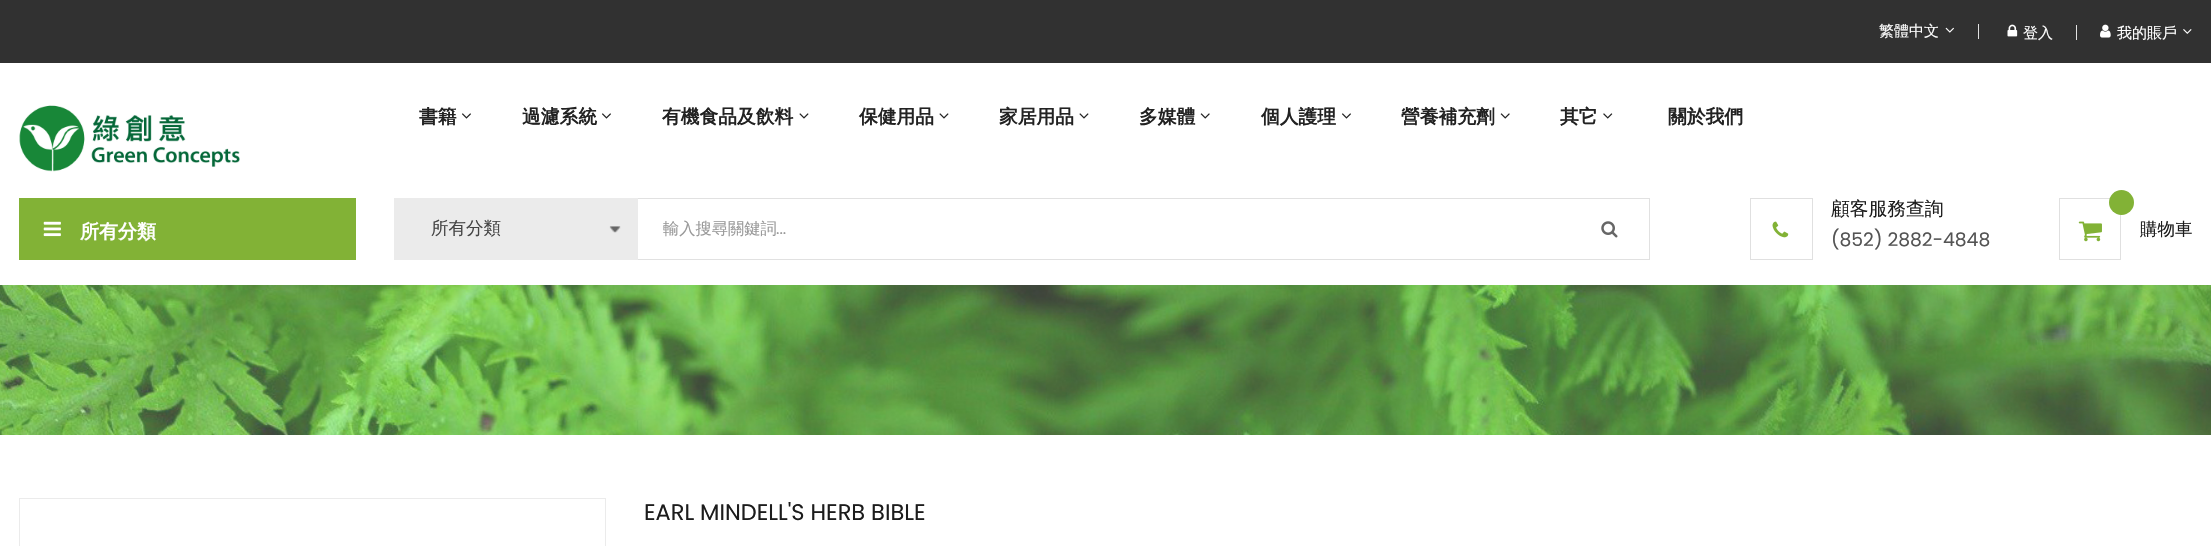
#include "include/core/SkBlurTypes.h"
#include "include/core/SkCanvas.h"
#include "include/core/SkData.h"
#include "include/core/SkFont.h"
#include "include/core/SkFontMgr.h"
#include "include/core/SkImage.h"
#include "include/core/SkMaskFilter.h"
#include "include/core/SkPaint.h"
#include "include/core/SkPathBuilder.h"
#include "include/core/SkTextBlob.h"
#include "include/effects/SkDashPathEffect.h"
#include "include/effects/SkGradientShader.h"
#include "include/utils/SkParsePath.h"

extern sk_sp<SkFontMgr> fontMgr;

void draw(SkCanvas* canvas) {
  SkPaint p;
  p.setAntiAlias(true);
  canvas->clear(SK_ColorWHITE);
  p.setColor(SkColorSetRGB(49, 49, 49));
  canvas->drawRect(SkRect::MakeLTRB(0, 0, 2211, 63), p);
  canvas->drawImageRect(SkImages::DeferredFromEncodedData(SkData::MakeFromFileName("images/1.png")), SkRect::MakeLTRB(1945, 27, 1954, 33), SkSamplingOptions());
  p.setColor(SkColorSetRGB(225, 225, 225));
  canvas->drawRect(SkRect::MakeLTRB(1978, 24, 1979, 39), p);
  canvas->drawImageRect(SkImages::DeferredFromEncodedData(SkData::MakeFromFileName("images/2.png")), SkRect::MakeLTRB(2007, 24, 2018, 37), SkSamplingOptions());
  canvas->drawRect(SkRect::MakeLTRB(2076, 25, 2077, 40), p);
  canvas->drawImageRect(SkImages::DeferredFromEncodedData(SkData::MakeFromFileName("images/3.png")), SkRect::MakeLTRB(2100, 24, 2111, 38), SkSamplingOptions());
  canvas->drawImageRect(SkImages::DeferredFromEncodedData(SkData::MakeFromFileName("images/4.png")), SkRect::MakeLTRB(2183, 29, 2192, 34), SkSamplingOptions());
  canvas->drawImageRect(SkImages::DeferredFromEncodedData(SkData::MakeFromFileName("images/5.png")), SkRect::MakeLTRB(19, 105, 240, 172), SkSamplingOptions());
  canvas->drawImageRect(SkImages::DeferredFromEncodedData(SkData::MakeFromFileName("images/6.png")), SkRect::MakeLTRB(462, 113, 471, 119), SkSamplingOptions());
  canvas->drawImageRect(SkImages::DeferredFromEncodedData(SkData::MakeFromFileName("images/6.png")), SkRect::MakeLTRB(602, 113, 611, 119), SkSamplingOptions());
  canvas->drawImageRect(SkImages::DeferredFromEncodedData(SkData::MakeFromFileName("images/7.png")), SkRect::MakeLTRB(799, 113, 809, 119), SkSamplingOptions());
  canvas->drawImageRect(SkImages::DeferredFromEncodedData(SkData::MakeFromFileName("images/7.png")), SkRect::MakeLTRB(939, 113, 949, 119), SkSamplingOptions());
  canvas->drawImageRect(SkImages::DeferredFromEncodedData(SkData::MakeFromFileName("images/7.png")), SkRect::MakeLTRB(1079, 113, 1089, 119), SkSamplingOptions());
  canvas->drawImageRect(SkImages::DeferredFromEncodedData(SkData::MakeFromFileName("images/8.png")), SkRect::MakeLTRB(1200, 113, 1210, 119), SkSamplingOptions());
  canvas->drawImageRect(SkImages::DeferredFromEncodedData(SkData::MakeFromFileName("images/6.png")), SkRect::MakeLTRB(1342, 113, 1351, 119), SkSamplingOptions());
  canvas->drawImageRect(SkImages::DeferredFromEncodedData(SkData::MakeFromFileName("images/8.png")), SkRect::MakeLTRB(1500, 113, 1510, 119), SkSamplingOptions());
  canvas->drawImageRect(SkImages::DeferredFromEncodedData(SkData::MakeFromFileName("images/9.png")), SkRect::MakeLTRB(1603, 113, 1613, 119), SkSamplingOptions());
  p.setColor(SkColorSetRGB(130, 178, 54));
  canvas->drawRect(SkRect::MakeLTRB(19, 198, 356, 260), p);
  canvas->drawImageRect(SkImages::DeferredFromEncodedData(SkData::MakeFromFileName("images/10.png")), SkRect::MakeLTRB(43, 221, 61, 237), SkSamplingOptions());
  p.setColor(SkColorSetRGB(235, 235, 235));
  canvas->drawRect(SkRect::MakeLTRB(394, 198, 638, 260), p);
  canvas->drawImageRect(SkImages::DeferredFromEncodedData(SkData::MakeFromFileName("images/11.png")), SkRect::MakeLTRB(609, 226, 621, 233), SkSamplingOptions());
  p.setColor(SkColorSetRGB(225, 225, 225));
  canvas->drawRect(SkRect::MakeLTRB(638, 198, 1650, 199), p);
  canvas->drawRect(SkRect::MakeLTRB(1649, 198, 1650, 260), p);
  canvas->drawRect(SkRect::MakeLTRB(638, 259, 1650, 260), p);
  canvas->drawImageRect(SkImages::DeferredFromEncodedData(SkData::MakeFromFileName("images/12.png")), SkRect::MakeLTRB(1601, 221, 1618, 238), SkSamplingOptions());
  p.setStyle(SkPaint::kStroke_Style);
  p.setStrokeWidth(1);
  p.setColor(SkColorSetRGB(224, 224, 224));
  canvas->drawRect(SkRect::MakeLTRB(1750.5f, 198.5f, 1812.5f, 259.5f), p);
  canvas->drawImageRect(SkImages::DeferredFromEncodedData(SkData::MakeFromFileName("images/13.png")), SkRect::MakeLTRB(1772, 221, 1789, 238), SkSamplingOptions());
  canvas->drawRect(SkRect::MakeLTRB(2059.5f, 198.5f, 2120.5f, 259.5f), p);
  canvas->drawImageRect(SkImages::DeferredFromEncodedData(SkData::MakeFromFileName("images/14.png")), SkRect::MakeLTRB(2078, 221, 2102, 242), SkSamplingOptions());
  p.setStyle(SkPaint::kFill_Style);
  p.setColor(SkColorSetRGB(130, 178, 54));
  canvas->drawCircle(2121.5f, 202.5f, 12.5f, p);
  canvas->drawImageRect(SkImages::DeferredFromEncodedData(SkData::MakeFromFileName("images/15.png")), SkRect::MakeLTRB(0, 285, 2211, 435), SkSamplingOptions());
  p.setStyle(SkPaint::kStroke_Style);
  p.setColor(SkColorSetRGB(235, 235, 235));
  canvas->drawRect(SkRect::MakeLTRB(19.5f, 498.5f, 605.5f, 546.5f), p);
  SkFont font1(fontMgr->matchFamilyStyle("WenQuanYi Zen Hei", SkFontStyle(500, SkFontStyle::kNormal_Width, SkFontStyle::kUpright_Slant)), 15);
  font1.setSubpixel(true);
  p.setStyle(SkPaint::kFill_Style);
  p.setColor(SK_ColorWHITE);
  canvas->drawString("繁體中文", 1879, 36, font1, p);
  canvas->drawString("登入", 2023, 38, font1, p);
  canvas->drawString("我的賬戶", 2117, 38, font1, p);
  SkFont font2(fontMgr->matchFamilyStyle("WenQuanYi Zen Hei", SkFontStyle::Bold()), 18.75f);
  font2.setSubpixel(true);
  p.setColor(SkColorSetRGB(34, 34, 34));
  canvas->drawString("書籍", 419, 123, font2, p);
  canvas->drawString("過濾系統", 522, 123, font2, p);
  canvas->drawString("有機食品及飲料", 662, 123, font2, p);
  canvas->drawString("保健用品", 859, 123, font2, p);
  canvas->drawString("家居用品", 999, 123, font2, p);
  canvas->drawString("多媒體", 1139, 123, font2, p);
  canvas->drawString("個人護理", 1261, 123, font2, p);
  canvas->drawString("營養補充劑", 1401, 123, font2, p);
  canvas->drawString("其它", 1560, 123, font2, p);
  canvas->drawString("關於我們", 1668, 123, font2, p);
  SkFont font3(fontMgr->matchFamilyStyle("WenQuanYi Zen Hei", SkFontStyle::Bold()), 19);
  font3.setSubpixel(true);
  p.setColor(SK_ColorWHITE);
  canvas->drawString("所有分類", 80, 238, font3, p);
  SkFont font4(fontMgr->matchFamilyStyle("WenQuanYi Zen Hei", SkFontStyle(500, SkFontStyle::kNormal_Width, SkFontStyle::kUpright_Slant)), 17.5f);
  font4.setSubpixel(true);
  p.setColor(SkColorSetRGB(68, 68, 68));
  canvas->drawString("所有分類", 431, 234, font4, p);
  canvas->save();
  canvas->clipRect(SkRect::MakeLTRB(663, 216, 1636, 241));
  SkFont font5(fontMgr->matchFamilyStyle("WenQuanYi Zen Hei", SkFontStyle(500, SkFontStyle::kNormal_Width, SkFontStyle::kUpright_Slant)), 16.25f);
  font5.setSubpixel(true);
  p.setColor(SkColorSetRGB(153, 153, 153));
  canvas->drawString("輸入搜尋關鍵詞", 663, 234, font5, p);
  canvas->restore();
  SkFont font6(fontMgr->matchFamilyStyle("Poppins", SkFontStyle::Normal()), 16.25f);
  font6.setSubpixel(true);
  canvas->drawString("...", 776, 234, font6, p);
  SkFont font7(fontMgr->matchFamilyStyle("WenQuanYi Zen Hei", SkFontStyle(500, SkFontStyle::kNormal_Width, SkFontStyle::kUpright_Slant)), 18.75f);
  font7.setSubpixel(true);
  p.setColor(SkColorSetRGB(28, 28, 28));
  canvas->drawString("顧客服務查詢", 1831, 215, font7, p);
  SkFont font8(fontMgr->matchFamilyStyle("Poppins", SkFontStyle::Normal()), 18.75f);
  font8.setSubpixel(true);
  p.setColor(SkColorSetRGB(84, 84, 84));
  canvas->drawString("(852) 2882-4848", 1831, 246, font8, p);
  p.setColor(SkColorSetRGB(28, 28, 28));
  canvas->drawString("購物車", 2140, 235, font4, p);
  SkFont font9(fontMgr->matchFamilyStyle("Poppins", SkFontStyle::Normal()), 22.5f);
  font9.setSubpixel(true);
  canvas->drawString("EARL MINDELL'S HERB BIBLE", 644, 520, font9, p);
}
